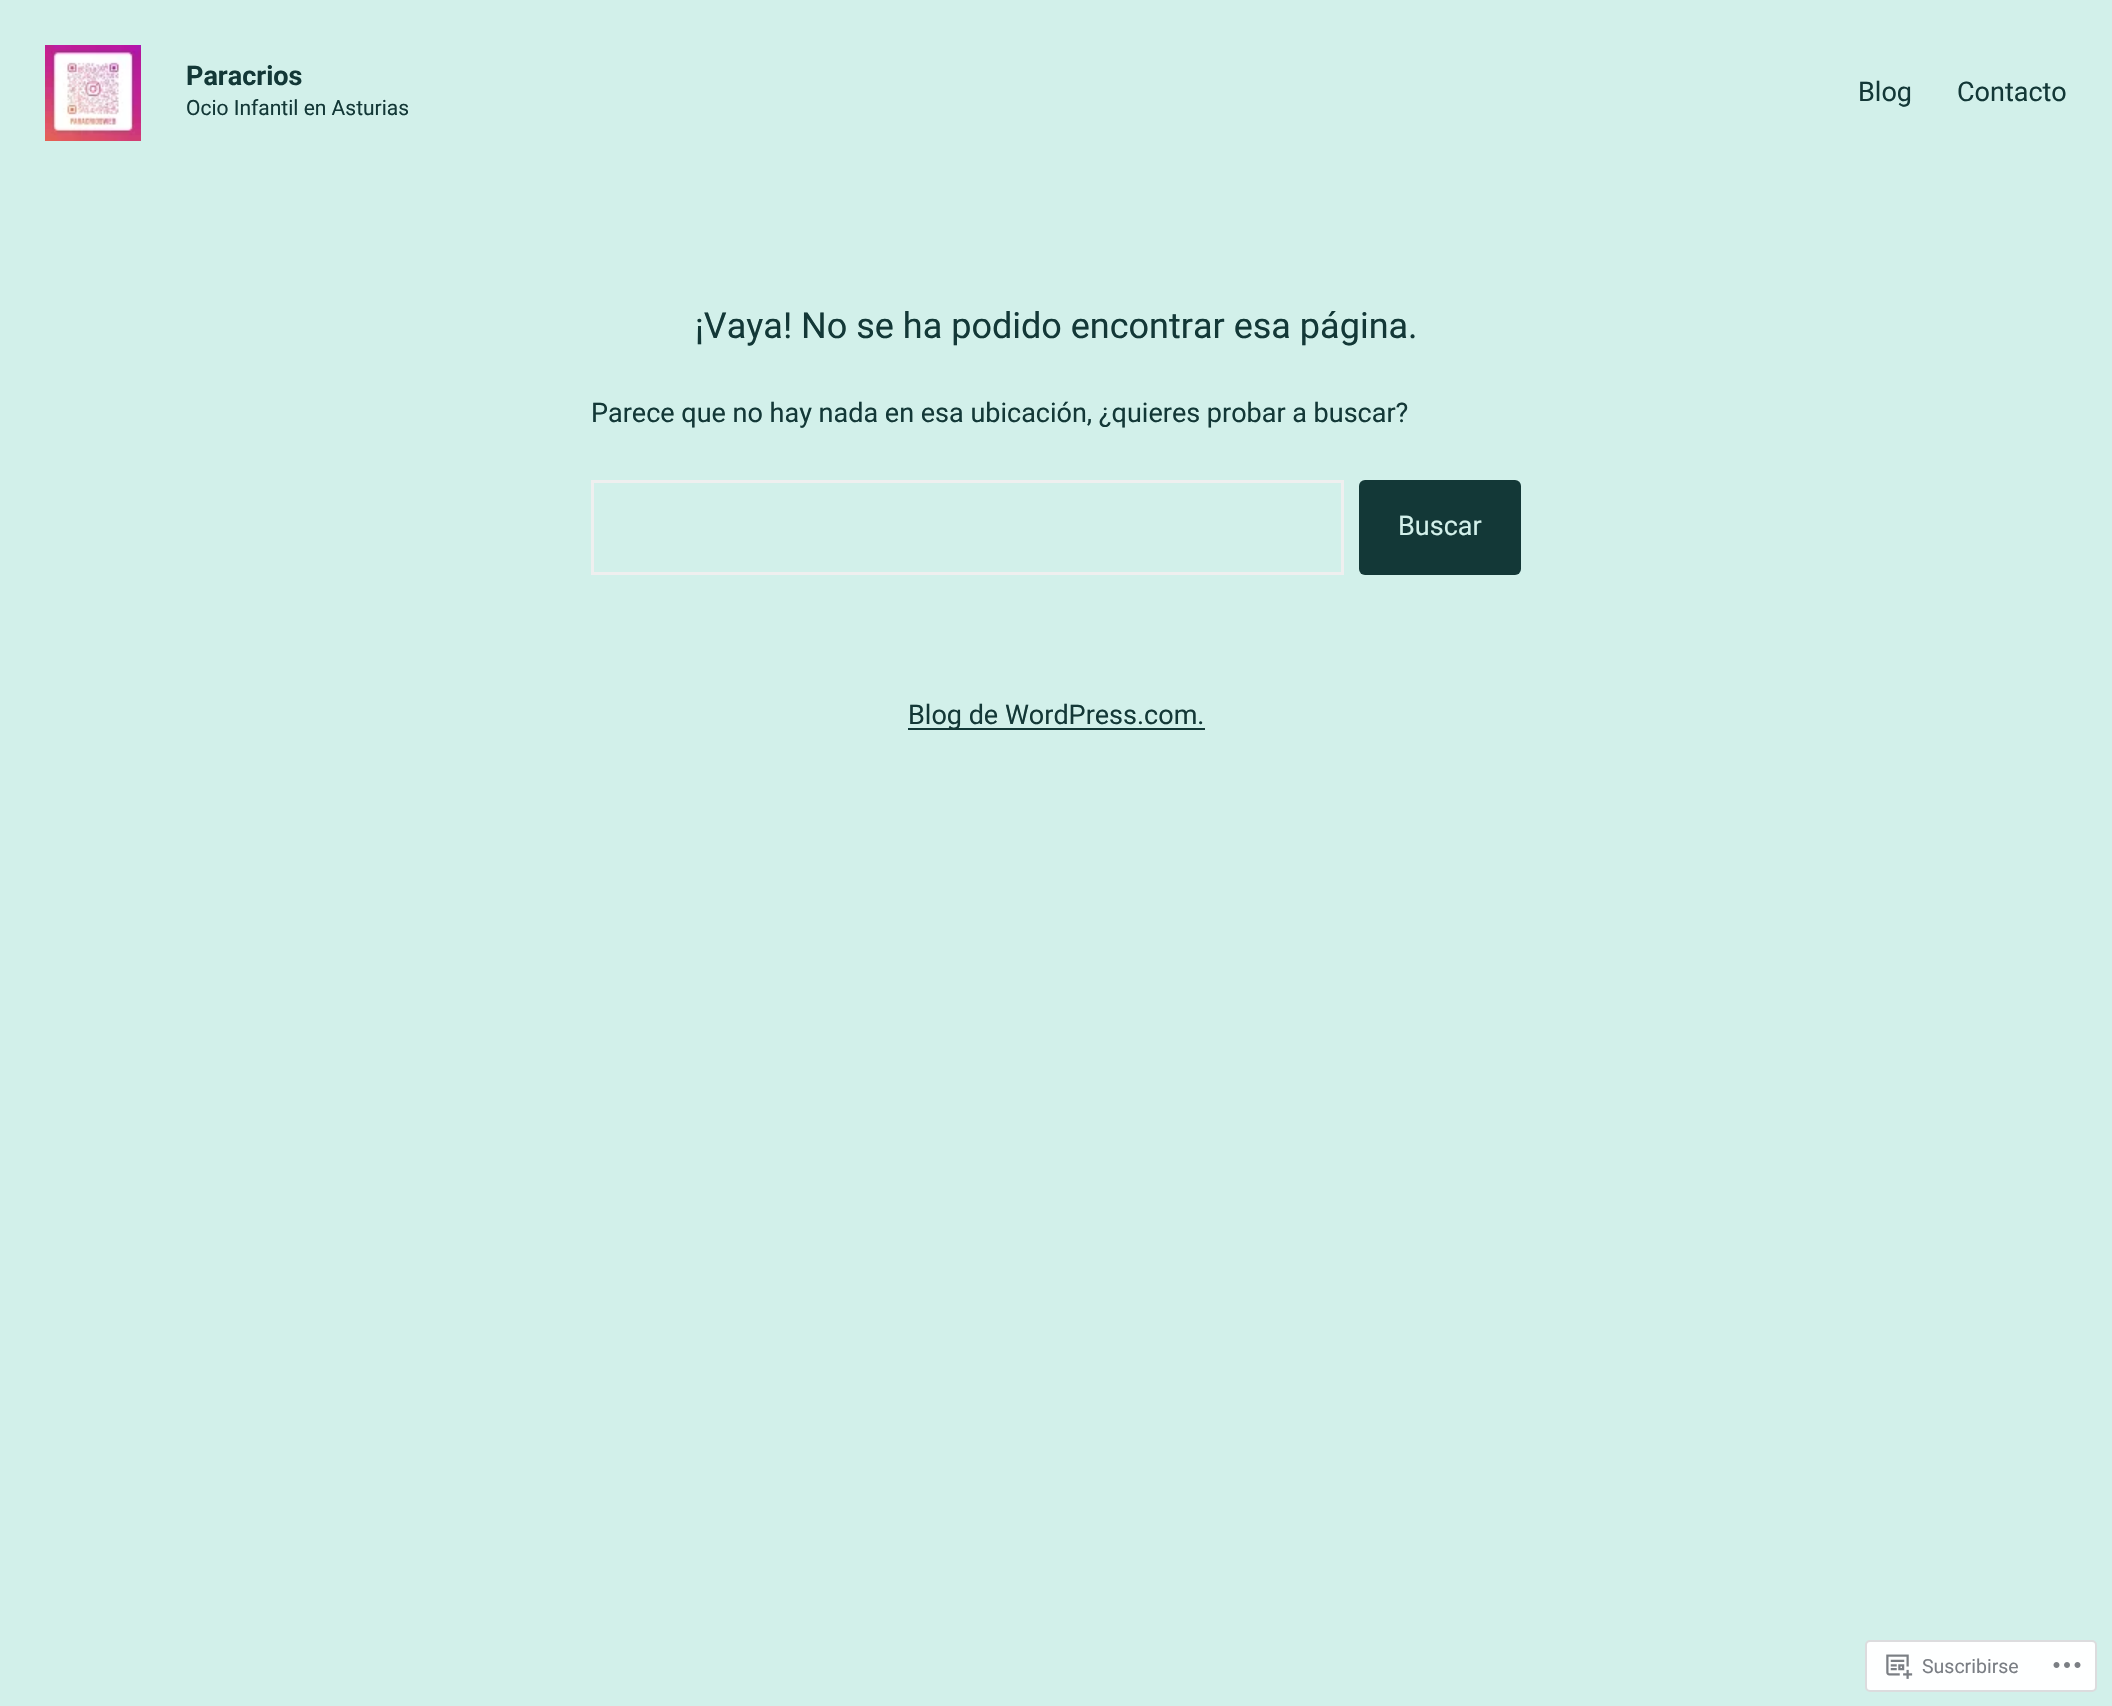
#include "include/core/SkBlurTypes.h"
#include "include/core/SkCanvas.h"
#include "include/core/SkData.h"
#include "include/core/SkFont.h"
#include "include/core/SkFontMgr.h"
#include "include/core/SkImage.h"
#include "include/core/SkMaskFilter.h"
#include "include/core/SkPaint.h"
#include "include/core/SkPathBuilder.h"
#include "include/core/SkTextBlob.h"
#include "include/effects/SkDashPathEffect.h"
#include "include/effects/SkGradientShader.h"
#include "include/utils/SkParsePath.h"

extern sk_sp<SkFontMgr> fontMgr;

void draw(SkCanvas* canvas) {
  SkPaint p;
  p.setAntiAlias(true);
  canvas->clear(SkColorSetRGB(210, 240, 234));
  canvas->drawImageRect(SkImages::DeferredFromEncodedData(SkData::MakeFromFileName("images/1.png")), SkRect::MakeLTRB(45, 45, 141, 141), SkSamplingOptions());
  p.setStyle(SkPaint::kStroke_Style);
  p.setStrokeWidth(3);
  p.setColor(SkColorSetRGB(239, 239, 239));
  canvas->drawRect(SkRect::MakeLTRB(592.5f, 481.5f, 1342.5f, 573.5f), p);
  p.setStyle(SkPaint::kFill_Style);
  p.setColor(SkColorSetRGB(19, 56, 55));
  canvas->drawRoundRect(SkRect::MakeLTRB(1359, 480, 1521, 575), 6, 6, p);
  canvas->drawRect(SkRect::MakeLTRB(908, 728, 1205, 730), p);
  p.setColor(SkColorSetRGB(254, 255, 255));
  canvas->drawRoundRect(SkRect::MakeLTRB(1866, 1641, 2096, 1691), 4, 4, p);
  p.setStyle(SkPaint::kStroke_Style);
  p.setStrokeWidth(2);
  p.setColor(SkColorSetRGB(220, 220, 222));
  canvas->drawRoundRect(SkRect::MakeLTRB(1866, 1641, 2096, 1691), 4, 4, p);
  canvas->drawImageRect(SkImages::DeferredFromEncodedData(SkData::MakeFromFileName("images/2.png")), SkRect::MakeLTRB(1886, 1654, 1913, 1679), SkSamplingOptions());
  canvas->drawImageRect(SkImages::DeferredFromEncodedData(SkData::MakeFromFileName("images/3.png")), SkRect::MakeLTRB(2053, 1662, 2081, 1668), SkSamplingOptions());
  SkFont font1(fontMgr->matchFamilyStyle("Roboto", SkFontStyle::Bold()), 27);
  font1.setSubpixel(true);
  p.setStyle(SkPaint::kFill_Style);
  p.setColor(SkColorSetRGB(19, 56, 55));
  canvas->drawString("Paracrios", 186, 85, font1, p);
  SkFont font2(fontMgr->matchFamilyStyle("Roboto", SkFontStyle::Normal()), 21);
  font2.setSubpixel(true);
  canvas->drawString("Ocio Infantil en Asturias", 186, 115, font2, p);
  SkFont font3(fontMgr->matchFamilyStyle("Roboto", SkFontStyle::Normal()), 27);
  font3.setSubpixel(true);
  canvas->drawString("Blog", 1858, 101, font3, p);
  canvas->drawString("Contacto", 1957, 101, font3, p);
  SkFont font4(fontMgr->matchFamilyStyle("Roboto", SkFontStyle::Normal()), 36);
  font4.setSubpixel(true);
  canvas->drawString("¡Vaya! No se ha podido encontrar esa página.", 695, 338, font4, p);
  canvas->drawString("Parece que no hay nada en esa ubicación, ¿quieres probar a buscar?", 591, 422, font3, p);
  p.setColor(SkColorSetRGB(210, 240, 234));
  canvas->drawString("Buscar", 1398, 535, font3, p);
  p.setColor(SkColorSetRGB(19, 56, 55));
  canvas->drawString("Blog de WordPress.com.", 908, 724, font3, p);
  SkFont font5(fontMgr->matchFamilyStyle("Roboto", SkFontStyle::Normal()), 19.5f);
  font5.setSubpixel(true);
  p.setColor(SkColorSetRGB(122, 126, 132));
  canvas->drawString("Suscribirse", 1922, 1673, font5, p);
}
